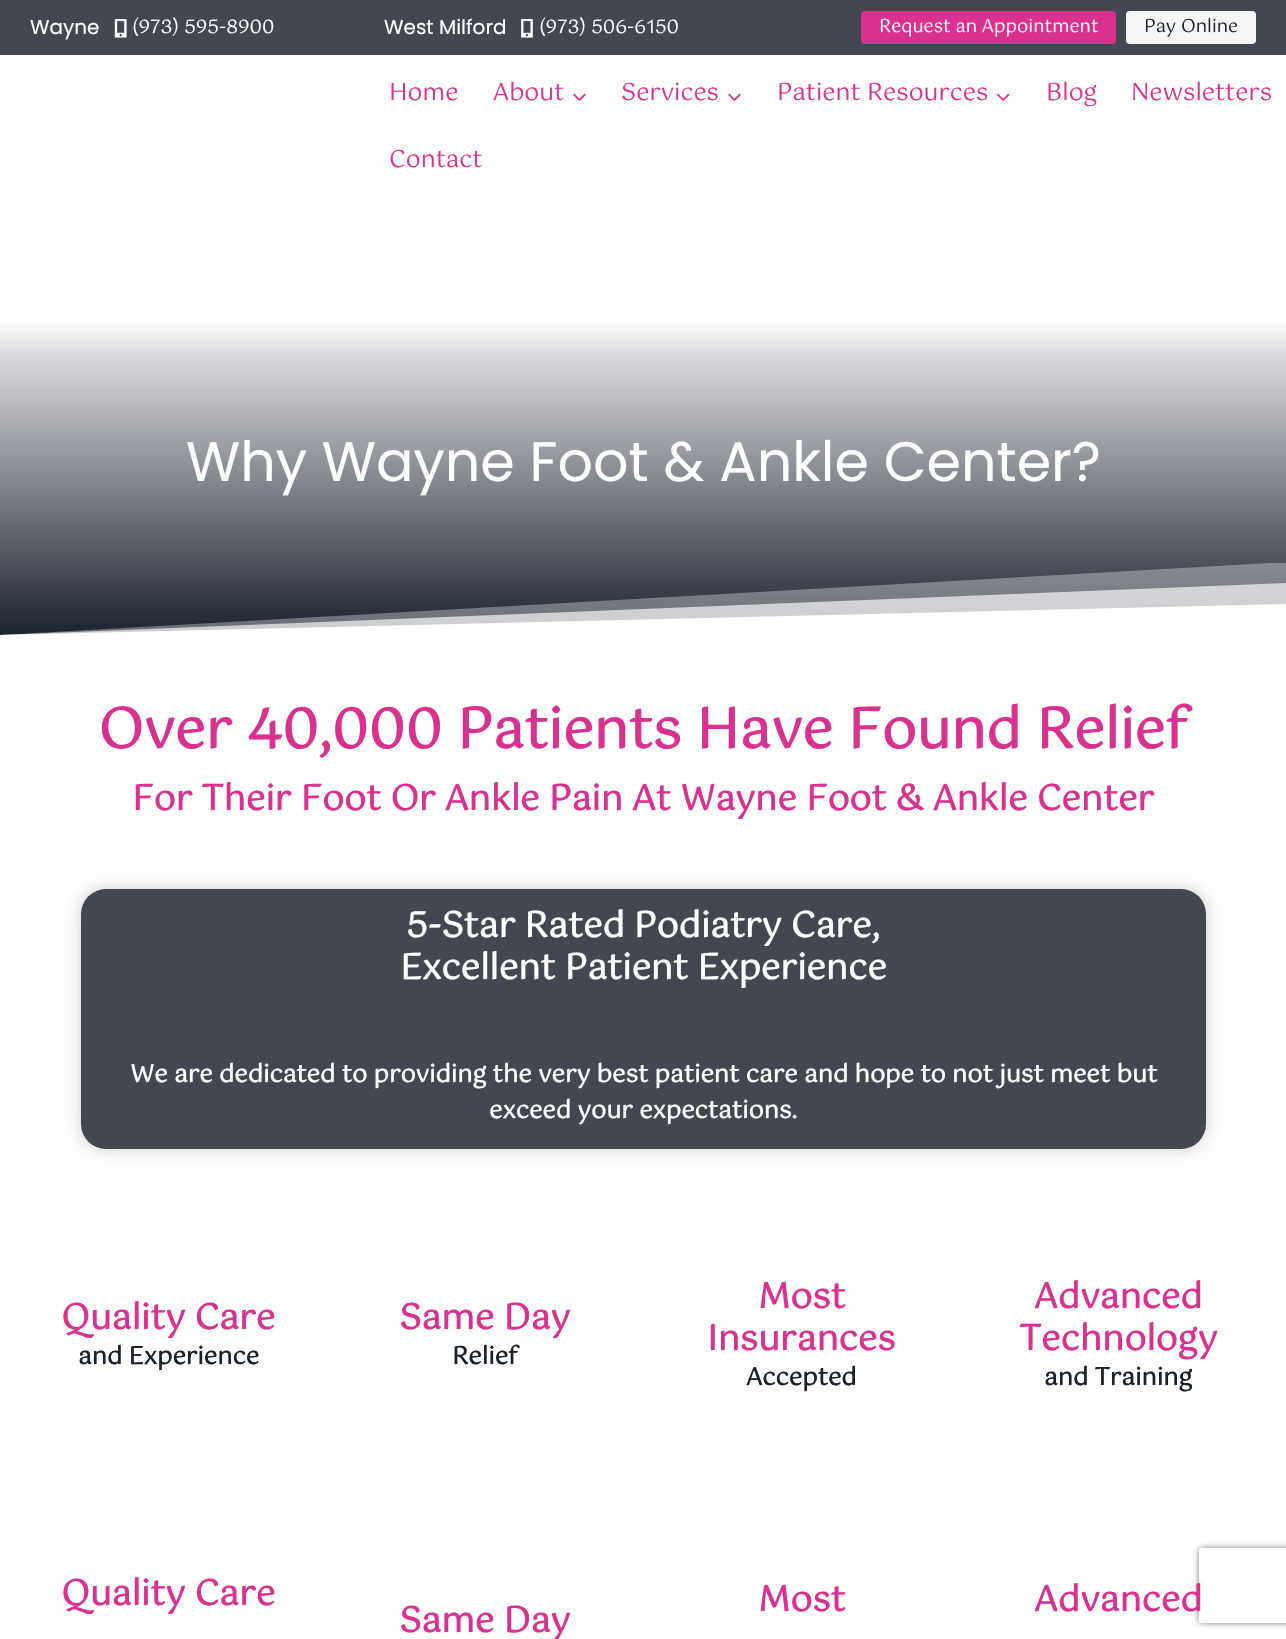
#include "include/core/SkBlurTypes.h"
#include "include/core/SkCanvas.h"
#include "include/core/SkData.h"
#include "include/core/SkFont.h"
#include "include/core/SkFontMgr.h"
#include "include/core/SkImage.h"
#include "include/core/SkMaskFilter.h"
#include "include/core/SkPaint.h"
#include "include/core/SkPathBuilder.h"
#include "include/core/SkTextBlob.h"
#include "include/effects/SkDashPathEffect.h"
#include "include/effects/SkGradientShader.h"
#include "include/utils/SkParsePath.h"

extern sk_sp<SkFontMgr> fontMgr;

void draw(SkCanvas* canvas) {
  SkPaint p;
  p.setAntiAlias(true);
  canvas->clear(SK_ColorWHITE);
  p.setColor(SkColorSetRGB(66, 71, 80));
  canvas->drawRect(SkRect::MakeLTRB(0, 0, 1286, 55), p);
  canvas->drawImageRect(SkImages::DeferredFromEncodedData(SkData::MakeFromFileName("images/1.png")), SkRect::MakeLTRB(114, 19, 127, 38), SkSamplingOptions());
  canvas->drawImageRect(SkImages::DeferredFromEncodedData(SkData::MakeFromFileName("images/2.png")), SkRect::MakeLTRB(521, 19, 533, 38), SkSamplingOptions());
  p.setColor(SkColorSetRGB(217, 49, 143));
  canvas->drawRoundRect(SkRect::MakeLTRB(861, 11, 1116, 44), 4, 4, p);
  p.setColor(SkColorSetRGB(245, 245, 245));
  canvas->drawRoundRect(SkRect::MakeLTRB(1126, 11, 1256, 44), 4, 4, p);
  canvas->drawImageRect(SkImages::DeferredFromEncodedData(SkData::MakeFromFileName("images/3.png")), SkRect::MakeLTRB(573, 93, 586, 101), SkSamplingOptions());
  canvas->drawImageRect(SkImages::DeferredFromEncodedData(SkData::MakeFromFileName("images/3.png")), SkRect::MakeLTRB(728, 93, 741, 101), SkSamplingOptions());
  canvas->drawImageRect(SkImages::DeferredFromEncodedData(SkData::MakeFromFileName("images/4.png")), SkRect::MakeLTRB(997, 93, 1010, 101), SkSamplingOptions());
  {
    const SkColor colors[] = {SkColorSetRGB(26, 32, 44), SkColorSetRGB(214, 216, 219), SK_ColorWHITE, SK_ColorWHITE};
    const float stops[] = {0, 0.64f, 0.73f, 1};
    const SkPoint ends[] = {{643, 638}, {643, 200}};
    p.setShader(SkGradientShader::MakeLinear(ends, colors, stops, 4, SkTileMode::kClamp));
    p.setAlpha(255);
  }
  canvas->drawRect(SkRect::MakeLTRB(0, 321, 1286, 635), p);
  canvas->save();
  canvas->clipRect(SkRect::MakeLTRB(0, 563, 1286, 639));
  p.setShader(nullptr);
  p.setColor(SkColorSetARGB(84, 255, 255, 255));
  canvas->drawPath(SkPathBuilder().moveTo(-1, 635).lineTo(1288, 562).lineTo(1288, 639).lineTo(-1, 639).close().detach(), p);
  canvas->restore();
  p.setColor(SkColorSetARGB(168, 255, 255, 255));
  canvas->drawPath(SkPathBuilder().moveTo(-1, 635).lineTo(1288, 583).lineTo(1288, 639).lineTo(-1, 639).close().detach(), p);
  p.setColor(SK_ColorWHITE);
  canvas->drawPath(SkPathBuilder().moveTo(-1, 635).lineTo(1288, 604).lineTo(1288, 639).lineTo(-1, 639).close().detach(), p);
  p.setColor(SkColorSetARGB(51, 0, 0, 0));
  p.setMaskFilter(SkMaskFilter::MakeBlur(kNormal_SkBlurStyle, 9));
  canvas->drawRoundRect(SkRect::MakeLTRB(81, 889, 1206, 1149), 25, 25, p);
  p.setMaskFilter(nullptr);
  p.setColor(SkColorSetRGB(66, 71, 80));
  canvas->drawRoundRect(SkRect::MakeLTRB(81, 889, 1206, 1149), 25, 25, p);
  canvas->save();
  canvas->clipPath(SkPathBuilder(SkPathFillType::kEvenOdd).moveTo(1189, 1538).lineTo(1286, 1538).lineTo(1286, 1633).lineTo(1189, 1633).close().moveTo(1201.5f, 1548).lineTo(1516.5f, 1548).cubicTo(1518, 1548, 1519, 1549, 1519, 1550.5f).lineTo(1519, 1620.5f).cubicTo(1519, 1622, 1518, 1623, 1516.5f, 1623).lineTo(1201.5f, 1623).cubicTo(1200, 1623, 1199, 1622, 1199, 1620.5f).lineTo(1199, 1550.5f).cubicTo(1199, 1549, 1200, 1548, 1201.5f, 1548).close().detach(), true);
  p.setColor(SkColorSetRGB(128, 128, 128));
  p.setMaskFilter(SkMaskFilter::MakeBlur(kNormal_SkBlurStyle, 3));
  canvas->drawRoundRect(SkRect::MakeLTRB(1199, 1548, 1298, 1623), 2.5f, 2.5f, p);
  p.setMaskFilter(nullptr);
  canvas->restore();
  SkFont font1(fontMgr->matchFamilyStyle("Poppins", SkFontStyle::Normal()), 20);
  font1.setSubpixel(true);
  p.setColor(SK_ColorWHITE);
  canvas->drawString("Wayne", 30, 34, font1, p);
  SkFont font2(fontMgr->matchFamilyStyle("Gotu", SkFontStyle::Normal()), 18.75f);
  font2.setSubpixel(true);
  canvas->drawString("(973) 595-8900", 132, 33, font2, p);
  canvas->drawString("West Milford", 384, 34, font1, p);
  canvas->drawString("(973) 506-6150", 539, 33, font2, p);
  SkFont font3(fontMgr->matchFamilyStyle("Gotu", SkFontStyle::Normal()), 18);
  font3.setSubpixel(true);
  canvas->drawString("Request an Appointment", 879, 32, font3, p);
  p.setColor(SkColorSetRGB(26, 32, 44));
  canvas->drawString("Pay Online", 1144, 32, font3, p);
  SkFont font4(fontMgr->matchFamilyStyle("Gotu", SkFontStyle::Normal()), 23.75f);
  font4.setSubpixel(true);
  p.setColor(SkColorSetRGB(217, 49, 143));
  canvas->drawString("Home", 389, 100, font4, p);
  canvas->drawString("About", 493, 100, font4, p);
  canvas->drawString("Services", 621, 100, font4, p);
  canvas->drawString("Patient Resources", 777, 100, font4, p);
  canvas->drawString("Blog", 1046, 100, font4, p);
  canvas->drawString("Newsletters", 1131, 100, font4, p);
  canvas->drawString("Contact", 389, 167, font4, p);
  SkFont font5(fontMgr->matchFamilyStyle("Poppins", SkFontStyle::Normal()), 55.5f);
  font5.setSubpixel(true);
  p.setColor(SK_ColorWHITE);
  canvas->drawString("Why Wayne Foot & Ankle Center?", 186, 481, font5, p);
  SkFont font6(fontMgr->matchFamilyStyle("Gotu", SkFontStyle::Bold()), 55.5f);
  font6.setSubpixel(true);
  p.setColor(SkColorSetRGB(217, 49, 143));
  canvas->drawString("Over 40,000 Patients Have Found Relief", 98, 748, font6, p);
  SkFont font7(fontMgr->matchFamilyStyle("Gotu", SkFontStyle::Bold()), 35);
  font7.setSubpixel(true);
  canvas->drawString("For Their Foot Or Ankle Pain At Wayne Foot & Ankle Center", 132, 810, font7, p);
  p.setColor(SK_ColorWHITE);
  canvas->drawString("5-Star Rated Podiatry Care,", 406, 937, font7, p);
  canvas->drawString("Excellent Patient Experience", 400, 979, font7, p);
  SkFont font8(fontMgr->matchFamilyStyle("Gotu", SkFontStyle::Bold()), 24.1f);
  font8.setSubpixel(true);
  canvas->drawString("We are dedicated to providing the very best patient care and hope to not just meet but", 130, 1082, font8, p);
  canvas->drawString("exceed your expectations.", 489, 1118, font8, p);
  p.setColor(SkColorSetRGB(217, 49, 143));
  canvas->drawString("Quality Care", 61, 1329, font7, p);
  p.setColor(SkColorSetRGB(26, 32, 44));
  canvas->drawString("and Experience", 78, 1364, font8, p);
  p.setColor(SkColorSetRGB(217, 49, 143));
  canvas->drawString("Same Day", 399, 1329, font7, p);
  p.setColor(SkColorSetRGB(26, 32, 44));
  canvas->drawString("Relief", 452, 1364, font8, p);
  p.setColor(SkColorSetRGB(217, 49, 143));
  canvas->drawString("Most", 758, 1308, font7, p);
  canvas->drawString("Insurances", 707, 1350, font7, p);
  p.setColor(SkColorSetRGB(26, 32, 44));
  canvas->drawString("Accepted", 746, 1385, font8, p);
  p.setColor(SkColorSetRGB(217, 49, 143));
  canvas->drawString("Advanced", 1034, 1308, font7, p);
  canvas->drawString("Technology", 1019, 1350, font7, p);
  p.setColor(SkColorSetRGB(26, 32, 44));
  canvas->drawString("and Training", 1044, 1385, font8, p);
  p.setColor(SkColorSetRGB(217, 49, 143));
  canvas->drawString("Quality Care", 61, 1605, font7, p);
  canvas->drawString("Most", 758, 1611, font7, p);
  canvas->drawString("Advanced", 1034, 1611, font7, p);
  canvas->drawString("Same Day", 399, 1632, font7, p);
}
